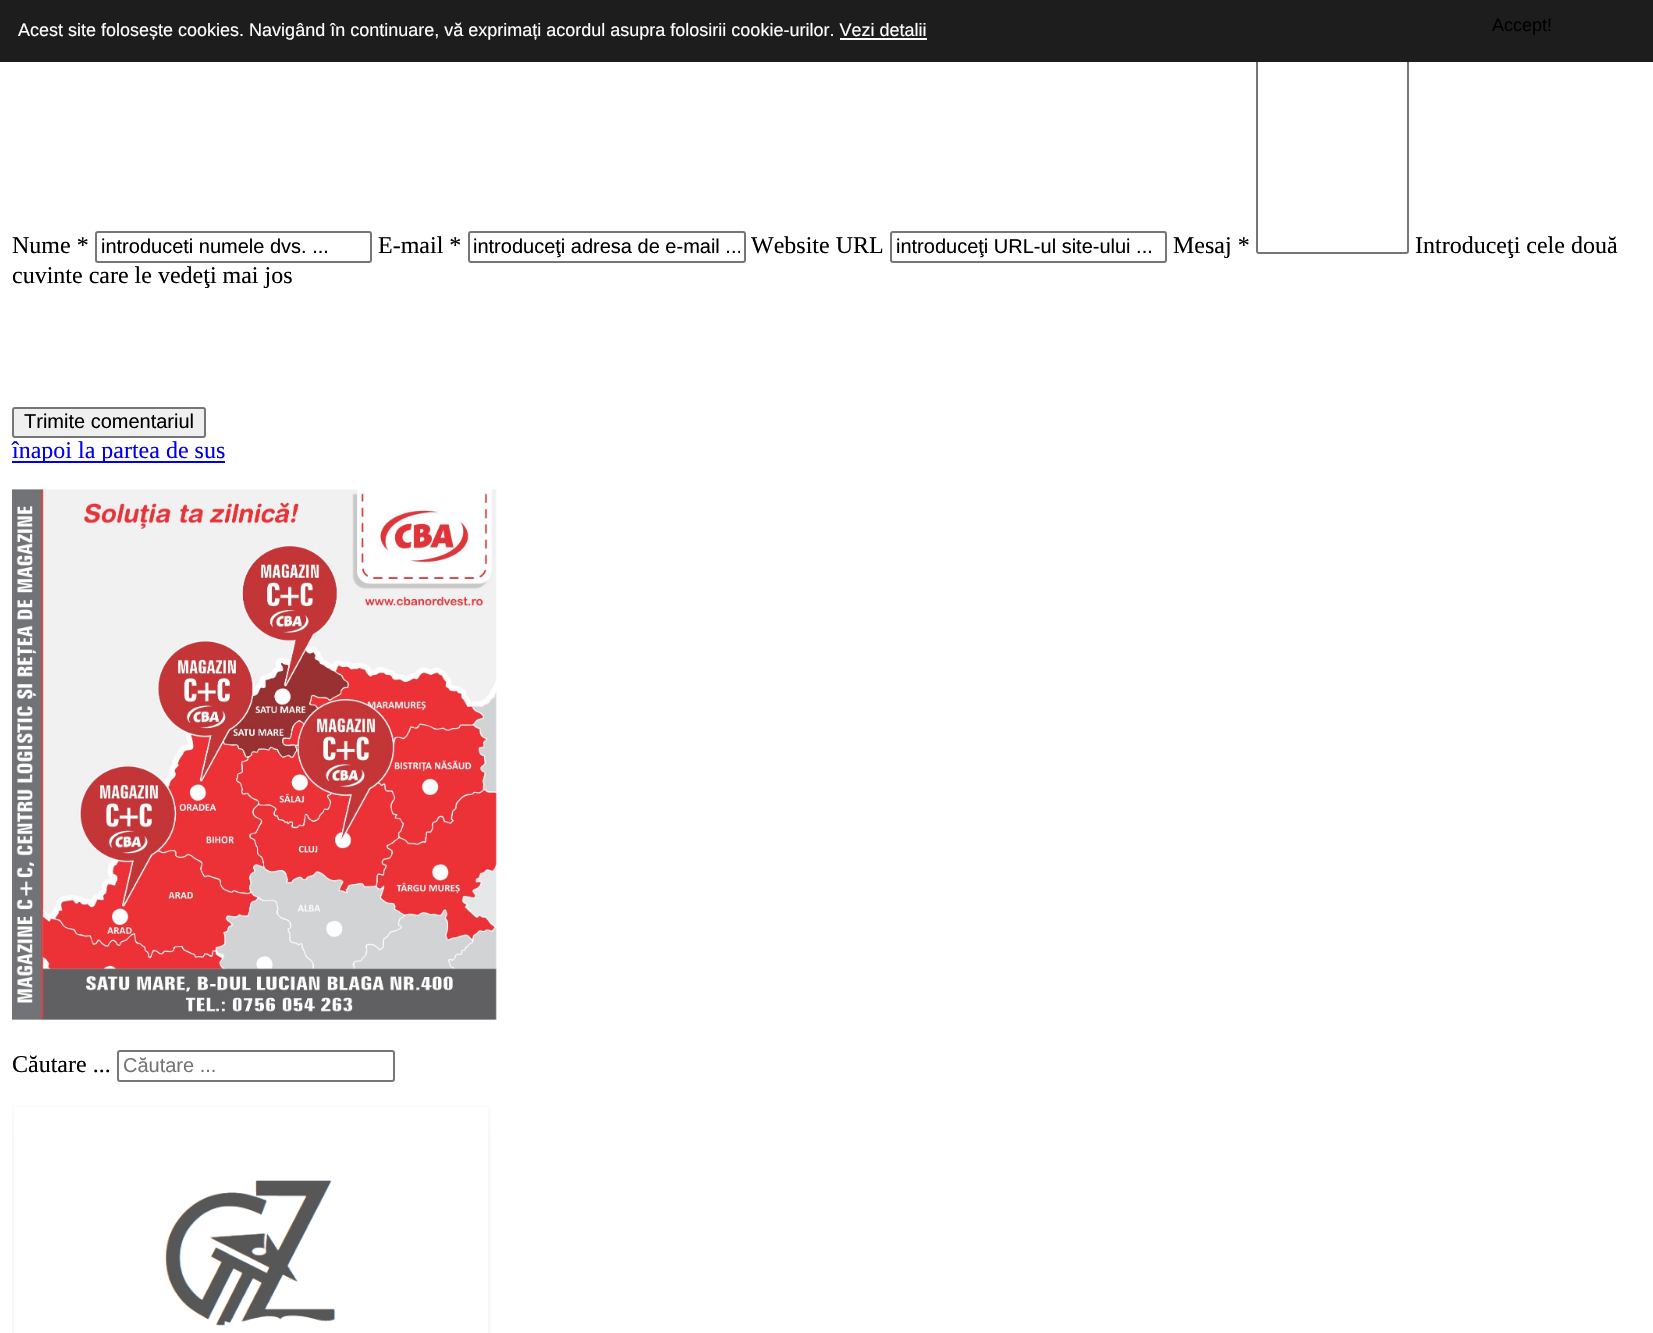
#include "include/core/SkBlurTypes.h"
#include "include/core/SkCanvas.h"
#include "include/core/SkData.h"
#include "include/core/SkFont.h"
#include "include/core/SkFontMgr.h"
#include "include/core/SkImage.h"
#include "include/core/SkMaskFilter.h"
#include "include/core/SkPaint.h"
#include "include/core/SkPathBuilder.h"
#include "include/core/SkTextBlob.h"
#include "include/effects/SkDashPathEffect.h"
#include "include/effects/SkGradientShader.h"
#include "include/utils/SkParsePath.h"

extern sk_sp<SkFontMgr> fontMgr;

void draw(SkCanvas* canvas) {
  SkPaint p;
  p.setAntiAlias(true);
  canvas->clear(SK_ColorWHITE);
  p.setStyle(SkPaint::kStroke_Style);
  p.setStrokeWidth(2);
  p.setColor(SkColorSetRGB(118, 118, 118));
  canvas->drawRoundRect(SkRect::MakeLTRB(1257, -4, 1408, 253), 2, 2, p);
  p.setStyle(SkPaint::kFill_Style);
  p.setColor(SkColorSetRGB(29, 29, 29));
  canvas->drawRect(SkRect::MakeLTRB(0, 0, 1653, 62), p);
  p.setColor(SK_ColorWHITE);
  canvas->drawRect(SkRect::MakeLTRB(840, 38, 927, 40), p);
  p.setStyle(SkPaint::kStroke_Style);
  p.setColor(SkColorSetRGB(118, 118, 118));
  canvas->drawRoundRect(SkRect::MakeLTRB(96, 232, 371, 262), 2, 2, p);
  canvas->drawRoundRect(SkRect::MakeLTRB(469, 232, 745, 262), 2, 2, p);
  canvas->drawRoundRect(SkRect::MakeLTRB(891, 232, 1166, 262), 2, 2, p);
  p.setStyle(SkPaint::kFill_Style);
  p.setColor(SkColorSetRGB(239, 239, 239));
  canvas->drawRoundRect(SkRect::MakeLTRB(13, 408, 205, 437), 2, 2, p);
  p.setStyle(SkPaint::kStroke_Style);
  p.setColor(SkColorSetRGB(118, 118, 118));
  canvas->drawRoundRect(SkRect::MakeLTRB(13, 408, 205, 437), 2, 2, p);
  p.setStyle(SkPaint::kFill_Style);
  p.setColor(SkColorSetRGB(0, 0, 238));
  canvas->drawRect(SkRect::MakeLTRB(12, 461, 225, 463), p);
  canvas->drawImageRect(SkImages::DeferredFromEncodedData(SkData::MakeFromFileName("images/1.png")), SkRect::MakeLTRB(12, 489, 497, 1020), SkSamplingOptions());
  p.setStyle(SkPaint::kStroke_Style);
  p.setColor(SkColorSetRGB(118, 118, 118));
  canvas->drawRoundRect(SkRect::MakeLTRB(118, 1051, 394, 1081), 2, 2, p);
  canvas->drawImageRect(SkImages::DeferredFromEncodedData(SkData::MakeFromFileName("images/2.png")), SkRect::MakeLTRB(12, 1105, 491, 1333), SkSamplingOptions());
  SkFont font1(fontMgr->matchFamilyStyle("Liberation Sans", SkFontStyle::Normal()), 18);
  font1.setSubpixel(true);
  p.setStyle(SkPaint::kFill_Style);
  p.setColor(SK_ColorWHITE);
  canvas->drawString("Acest site folosește cookies. Navigând în continuare, vă exprimați acordul asupra folosirii cookie-urilor. Vezi detalii", 18, 36, font1, p);
  p.setColor(SK_ColorBLACK);
  canvas->drawString("Accept!", 1492, 31, font1, p);
  SkFont font2(fontMgr->matchFamilyStyle("Liberation Serif", SkFontStyle::Normal()), 24);
  font2.setSubpixel(true);
  canvas->drawString("Nume *", 12, 253, font2, p);
  SkFont font3(fontMgr->matchFamilyStyle("Liberation Sans", SkFontStyle::Normal()), 20);
  font3.setSubpixel(true);
  canvas->drawString("introduceti numele dvs. ...", 101, 253, font3, p);
  canvas->drawString("E-mail *", 378, 253, font2, p);
  canvas->save();
  canvas->clipRect(SkRect::MakeLTRB(474, 236, 740, 258));
  canvas->drawString("introduceţi adresa de e-mail ...", 473, 253, font3, p);
  canvas->restore();
  canvas->drawString("Website URL", 751, 253, font2, p);
  canvas->drawString("introduceţi URL-ul site-ului ...", 896, 253, font3, p);
  canvas->drawString("Mesaj *", 1173, 253, font2, p);
  canvas->drawString("Introduceţi cele două", 1415, 253, font2, p);
  canvas->drawString("cuvinte care le vedeţi mai jos", 12, 283, font2, p);
  canvas->drawString("Trimite comentariul", 24, 428, font3, p);
  p.setColor(SkColorSetRGB(0, 0, 238));
  canvas->drawString("înapoi la partea de sus", 12, 458, font2, p);
  p.setColor(SK_ColorBLACK);
  canvas->drawString("Căutare ...", 12, 1072, font2, p);
  p.setColor(SkColorSetRGB(117, 117, 117));
  canvas->drawString("Căutare ...", 123, 1072, font3, p);
}
